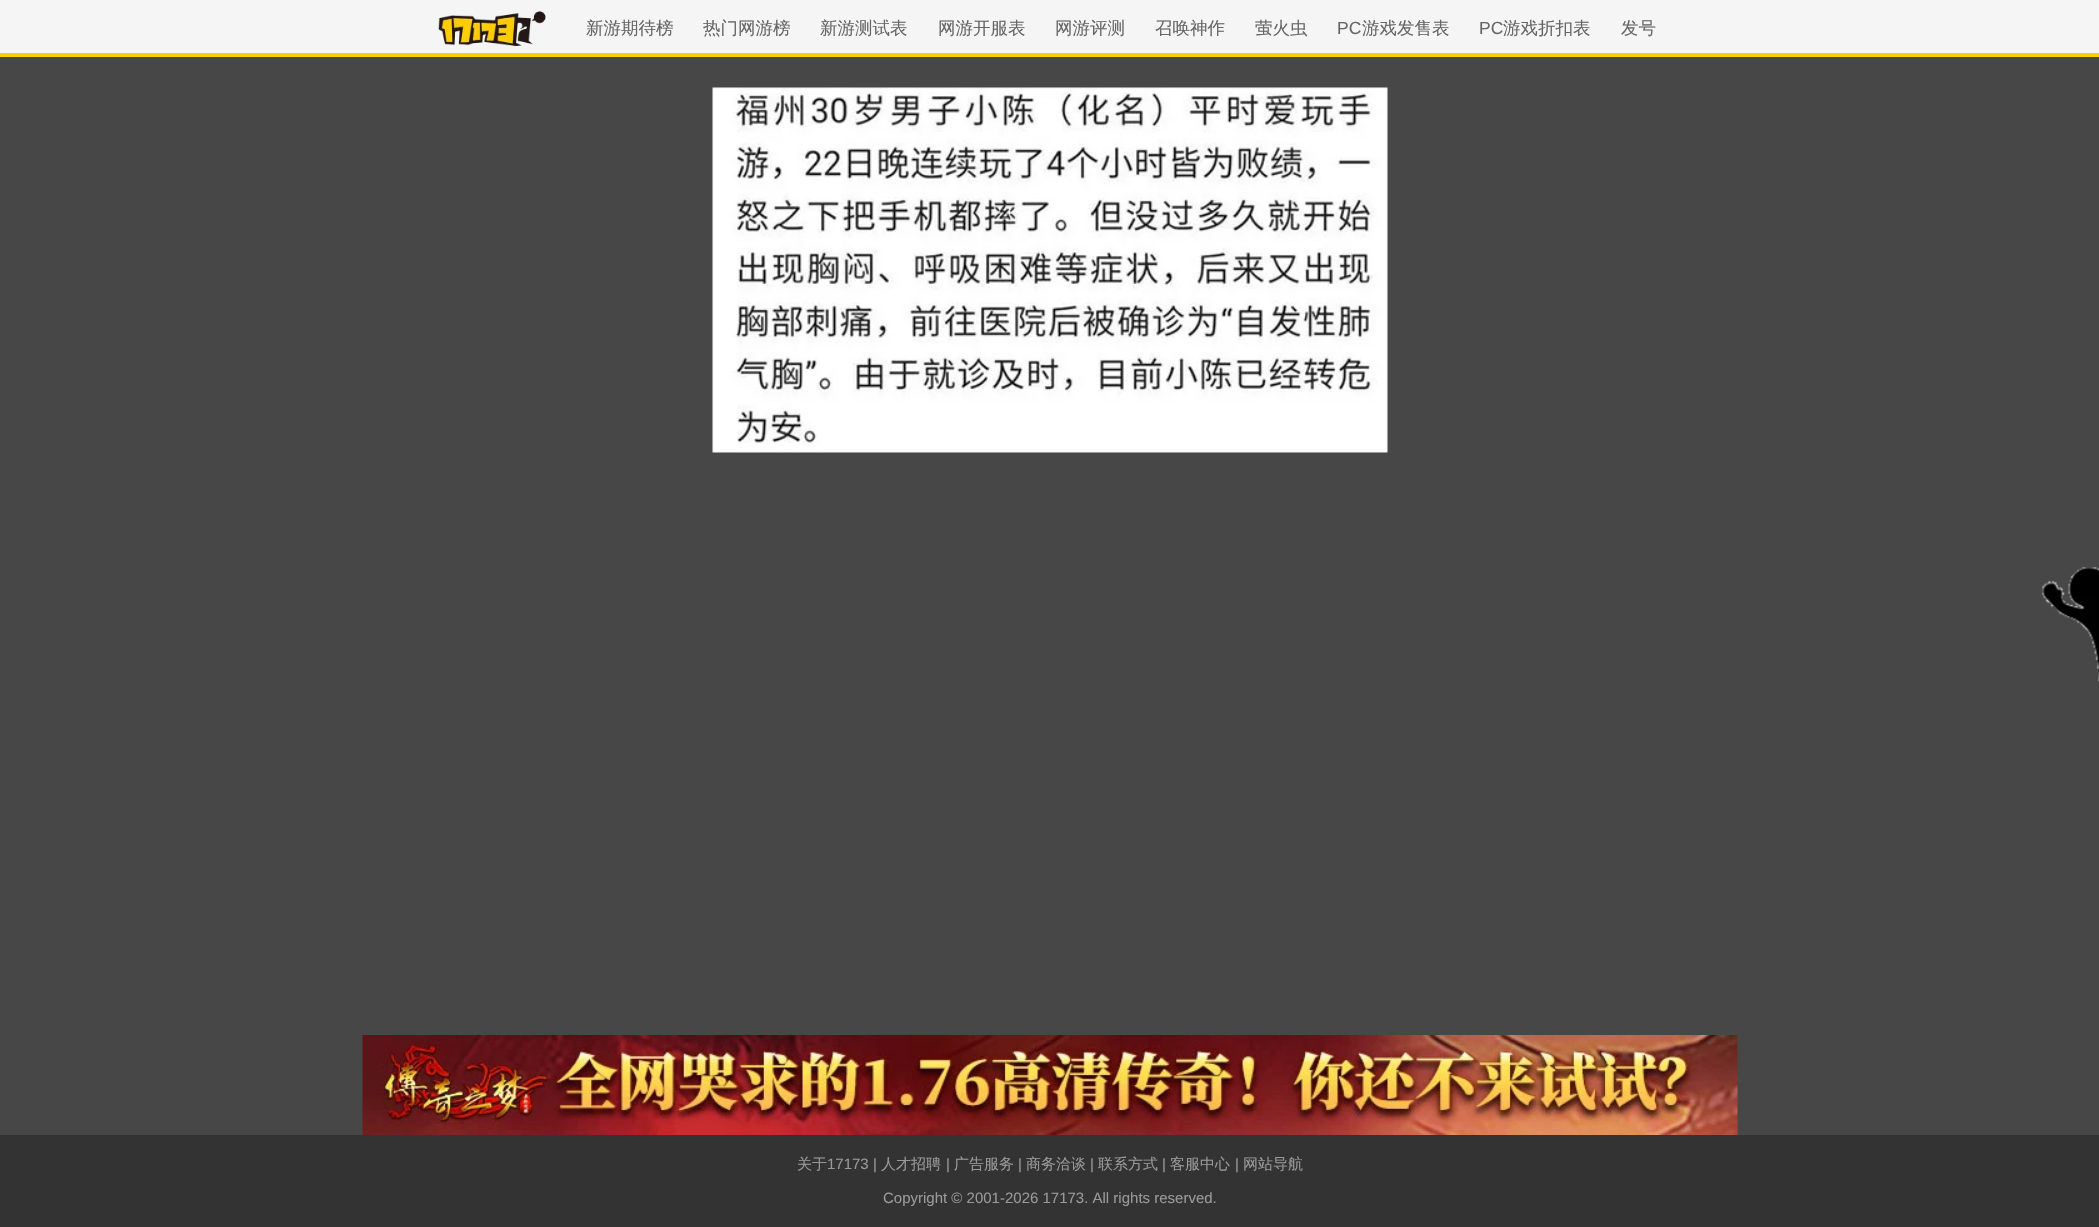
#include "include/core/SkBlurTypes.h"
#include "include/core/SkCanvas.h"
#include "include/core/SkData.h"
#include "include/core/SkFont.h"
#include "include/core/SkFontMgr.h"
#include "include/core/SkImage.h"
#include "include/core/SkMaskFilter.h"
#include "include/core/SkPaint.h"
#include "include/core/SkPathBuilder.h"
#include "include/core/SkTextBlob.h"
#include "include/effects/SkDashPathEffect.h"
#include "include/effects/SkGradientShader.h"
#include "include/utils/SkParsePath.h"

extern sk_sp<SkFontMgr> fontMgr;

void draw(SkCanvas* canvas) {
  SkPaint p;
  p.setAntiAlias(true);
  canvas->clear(SkColorSetRGB(71, 71, 71));
  p.setColor(SkColorSetRGB(245, 245, 245));
  canvas->drawRect(SkRect::MakeLTRB(0, 0, 2099, 53), p);
  p.setColor(SkColorSetRGB(255, 205, 0));
  canvas->drawRect(SkRect::MakeLTRB(0, 53, 2099, 57), p);
  canvas->drawImageRect(SkImages::DeferredFromEncodedData(SkData::MakeFromFileName("images/1.png")), SkRect::MakeLTRB(438, 11, 546, 46), SkSamplingOptions());
  canvas->drawImageRect(SkImages::DeferredFromEncodedData(SkData::MakeFromFileName("images/2.png")), SkRect::MakeLTRB(712, 87, 1388, 453), SkSamplingOptions());
  canvas->drawImageRect(SkImages::DeferredFromEncodedData(SkData::MakeFromFileName("images/3.png")), SkRect::MakeLTRB(362, 1035, 1738, 1135), SkSamplingOptions());
  canvas->drawImageRect(SkImages::DeferredFromEncodedData(SkData::MakeFromFileName("images/4.png")), SkRect::MakeLTRB(2042, 567, 2099, 682), SkSamplingOptions());
  p.setColor(SkColorSetRGB(51, 51, 51));
  canvas->drawRect(SkRect::MakeLTRB(0, 1135, 2099, 1227), p);
  SkFont font1(fontMgr->matchFamilyStyle("WenQuanYi Zen Hei", SkFontStyle(500, SkFontStyle::kNormal_Width, SkFontStyle::kUpright_Slant)), 17.5f);
  font1.setSubpixel(true);
  p.setColor(SkColorSetRGB(102, 102, 102));
  canvas->drawString("新游期待榜", 586, 34, font1, p);
  canvas->drawString("热门网游榜", 703, 34, font1, p);
  canvas->drawString("新游测试表", 820, 34, font1, p);
  canvas->drawString("网游开服表", 938, 34, font1, p);
  canvas->drawString("网游评测", 1055, 34, font1, p);
  canvas->drawString("召唤神作", 1155, 34, font1, p);
  canvas->drawString("萤火虫", 1255, 34, font1, p);
  SkFont font2(fontMgr->matchFamilyStyle("Liberation Sans", SkFontStyle::Normal()), 17.5f);
  font2.setSubpixel(true);
  canvas->drawString("PC", 1337, 34, font2, p);
  canvas->drawString("游戏发售表", 1362, 34, font1, p);
  canvas->drawString("PC", 1479, 34, font2, p);
  canvas->drawString("游戏折扣表", 1503, 34, font1, p);
  canvas->drawString("发号", 1621, 34, font1, p);
  SkFont font3(fontMgr->matchFamilyStyle("WenQuanYi Zen Hei", SkFontStyle(500, SkFontStyle::kNormal_Width, SkFontStyle::kUpright_Slant)), 15);
  font3.setSubpixel(true);
  p.setColor(SkColorSetRGB(153, 153, 153));
  canvas->drawString("关于", 797, 1169, font3, p);
  SkFont font4(fontMgr->matchFamilyStyle("Liberation Sans", SkFontStyle::Normal()), 15);
  font4.setSubpixel(true);
  canvas->drawString("17173 |", 827, 1169, font4, p);
  canvas->drawString("人才招聘", 881, 1169, font3, p);
  canvas->drawString("|", 946, 1169, font4, p);
  canvas->drawString("广告服务", 954, 1169, font3, p);
  canvas->drawString("|", 1018, 1169, font4, p);
  canvas->drawString("商务洽谈", 1026, 1169, font3, p);
  canvas->drawString("|", 1090, 1169, font4, p);
  canvas->drawString("联系方式", 1098, 1169, font3, p);
  canvas->drawString("|", 1162, 1169, font4, p);
  canvas->drawString("客服中心", 1170, 1169, font3, p);
  canvas->drawString("|", 1235, 1169, font4, p);
  canvas->drawString("网站导航", 1243, 1169, font3, p);
  canvas->drawString("Copyright © 2001-2026 17173. All rights reserved.", 883, 1203, font4, p);
}
